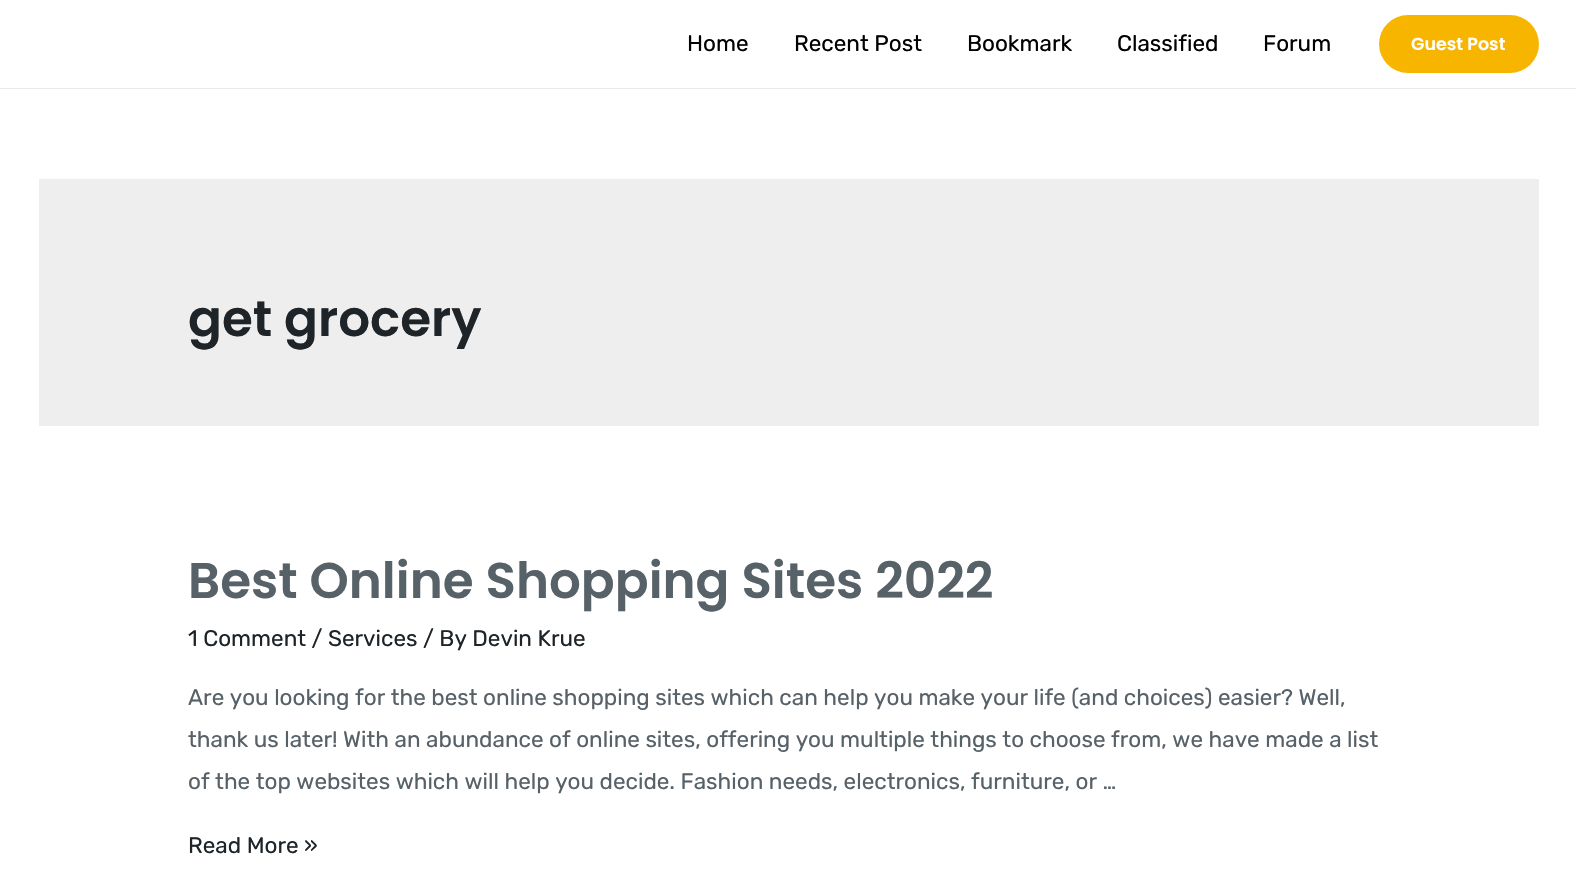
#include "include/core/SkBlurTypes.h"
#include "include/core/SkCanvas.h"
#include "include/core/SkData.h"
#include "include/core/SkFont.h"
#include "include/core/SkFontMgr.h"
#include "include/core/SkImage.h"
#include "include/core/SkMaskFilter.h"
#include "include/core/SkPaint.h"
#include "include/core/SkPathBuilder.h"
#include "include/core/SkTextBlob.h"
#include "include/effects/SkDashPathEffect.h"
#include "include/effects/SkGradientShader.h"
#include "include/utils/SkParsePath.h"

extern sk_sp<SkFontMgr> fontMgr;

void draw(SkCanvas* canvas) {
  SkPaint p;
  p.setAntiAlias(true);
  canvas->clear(SK_ColorWHITE);
  p.setColor(SkColorSetRGB(234, 234, 234));
  canvas->drawRect(SkRect::MakeLTRB(0, 88, 1576, 89), p);
  p.setColor(SkColorSetRGB(247, 181, 0));
  canvas->drawRoundRect(SkRect::MakeLTRB(1379, 15, 1539, 73), 29, 29, p);
  p.setColor(SkColorSetRGB(238, 238, 238));
  canvas->drawRect(SkRect::MakeLTRB(39, 179, 1539, 426), p);
  SkFont font1(fontMgr->matchFamilyStyle("Rubik", SkFontStyle::Normal()), 22.5f);
  font1.setSubpixel(true);
  p.setColor(SK_ColorBLACK);
  canvas->drawString("Home", 687, 51, font1, p);
  canvas->drawString("Recent Post", 794, 51, font1, p);
  canvas->drawString("Bookmark", 967, 51, font1, p);
  canvas->drawString("Classified", 1117, 51, font1, p);
  canvas->drawString("Forum", 1263, 51, font1, p);
  SkFont font2(fontMgr->matchFamilyStyle("Poppins", SkFontStyle(600, SkFontStyle::kNormal_Width, SkFontStyle::kUpright_Slant)), 17.5f);
  font2.setSubpixel(true);
  p.setColor(SK_ColorWHITE);
  canvas->drawString("Guest Post", 1411, 50, font2, p);
  SkFont font3(fontMgr->matchFamilyStyle("Poppins", SkFontStyle(600, SkFontStyle::kNormal_Width, SkFontStyle::kUpright_Slant)), 50);
  font3.setSubpixel(true);
  p.setColor(SkColorSetRGB(30, 36, 40));
  canvas->drawString("get grocery", 188, 336, font3, p);
  p.setColor(SkColorSetRGB(87, 97, 104));
  canvas->drawString("Best Online Shopping Sites 2022", 188, 598, font3, p);
  p.setColor(SkColorSetRGB(30, 36, 40));
  canvas->drawString("1 Comment / Services / By Devin Krue", 188, 646, font1, p);
  p.setColor(SkColorSetRGB(87, 97, 104));
  canvas->drawString("Are you looking for the best online shopping sites which can help you make your life (and choices) easier? Well,", 188, 705, font1, p);
  canvas->drawString("thank us later! With an abundance of online sites, offering you multiple things to choose from, we have made a list", 188, 747, font1, p);
  canvas->drawString("of the top websites which will help you decide. Fashion needs, electronics, furniture, or …", 188, 789, font1, p);
  p.setColor(SkColorSetRGB(30, 36, 40));
  canvas->drawString("Read More »", 188, 853, font1, p);
}
